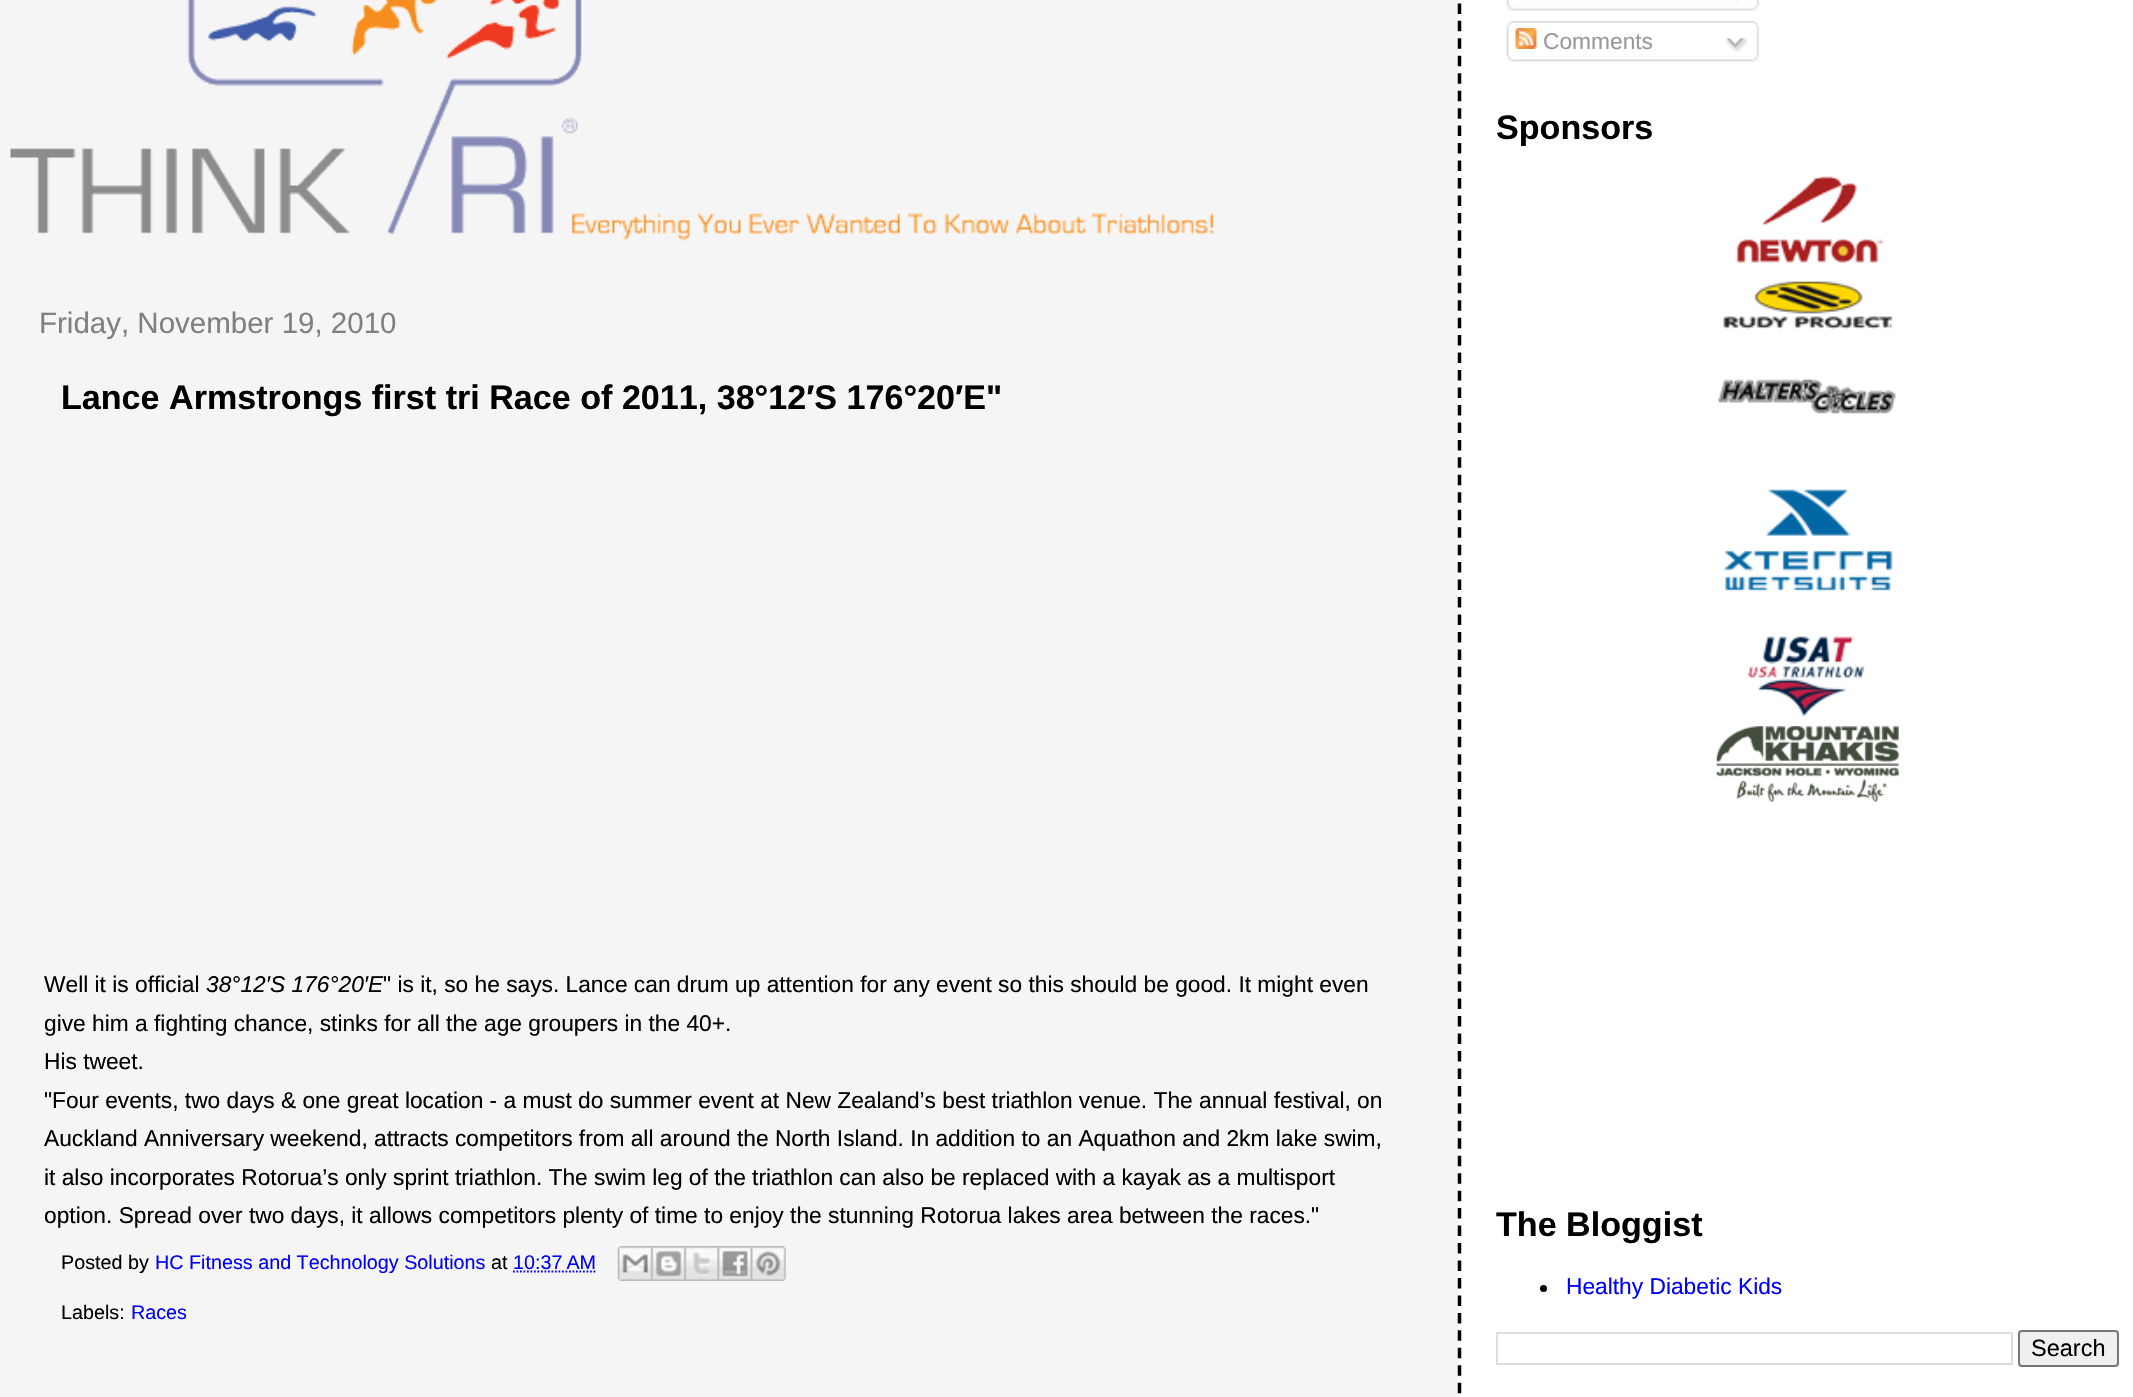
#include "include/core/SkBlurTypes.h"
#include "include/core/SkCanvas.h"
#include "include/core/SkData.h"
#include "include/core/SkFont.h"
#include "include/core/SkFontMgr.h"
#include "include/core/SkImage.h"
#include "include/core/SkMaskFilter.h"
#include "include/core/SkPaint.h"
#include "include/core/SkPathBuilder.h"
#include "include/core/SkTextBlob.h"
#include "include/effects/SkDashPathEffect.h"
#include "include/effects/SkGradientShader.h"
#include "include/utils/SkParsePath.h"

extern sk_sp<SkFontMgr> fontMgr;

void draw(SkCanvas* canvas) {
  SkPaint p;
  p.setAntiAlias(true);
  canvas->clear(SkColorSetRGB(245, 245, 245));
  canvas->drawImageRect(SkImages::DeferredFromEncodedData(SkData::MakeFromFileName("images/1.png")), SkRect::MakeLTRB(10, 0, 1214, 241), SkSamplingOptions());
  p.setStyle(SkPaint::kStroke_Style);
  p.setStrokeWidth(1.8f);
  p.setColor(SkColorSetRGB(0, 0, 255));
  p.setPathEffect(SkDashPathEffect::Make({{1.75f, 1.75f}}, 0));
  canvas->drawPath(SkPathBuilder().moveTo(513, 1271.5f).lineTo(596, 1271.5f).detach(), p);
  p.setPathEffect(nullptr);
  canvas->drawImageRect(SkImages::DeferredFromEncodedData(SkData::MakeFromFileName("images/2.png")), SkRect::MakeLTRB(617, 1246, 651, 1281), SkSamplingOptions());
  canvas->drawImageRect(SkImages::DeferredFromEncodedData(SkData::MakeFromFileName("images/3.png")), SkRect::MakeLTRB(651, 1246, 685, 1281), SkSamplingOptions());
  canvas->drawImageRect(SkImages::DeferredFromEncodedData(SkData::MakeFromFileName("images/4.png")), SkRect::MakeLTRB(684, 1246, 718, 1281), SkSamplingOptions());
  canvas->drawImageRect(SkImages::DeferredFromEncodedData(SkData::MakeFromFileName("images/5.png")), SkRect::MakeLTRB(717, 1246, 751, 1281), SkSamplingOptions());
  canvas->drawImageRect(SkImages::DeferredFromEncodedData(SkData::MakeFromFileName("images/6.png")), SkRect::MakeLTRB(750, 1246, 786, 1281), SkSamplingOptions());
  p.setStyle(SkPaint::kFill_Style);
  p.setColor(SK_ColorWHITE);
  canvas->drawRect(SkRect::MakeLTRB(1458, 0, 2133, 1397), p);
  p.setStyle(SkPaint::kStroke_Style);
  p.setStrokeWidth(3.5f);
  p.setColor(SK_ColorBLACK);
  p.setPathEffect(SkDashPathEffect::Make({{10.5f, 6.96f}}, 0));
  canvas->drawPath(SkPathBuilder().moveTo(1459.5f, -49).lineTo(1459.5f, 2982).detach(), p);
  p.setPathEffect(nullptr);
  canvas->drawImageRect(SkImages::DeferredFromEncodedData(SkData::MakeFromFileName("images/7.png")), SkRect::MakeLTRB(1506, 0, 1759, 6), SkSamplingOptions());
  canvas->drawImageRect(SkImages::DeferredFromEncodedData(SkData::MakeFromFileName("images/8.png")), SkRect::MakeLTRB(1734, 0, 1740, 2), SkSamplingOptions());
  canvas->drawImageRect(SkImages::DeferredFromEncodedData(SkData::MakeFromFileName("images/9.png")), SkRect::MakeLTRB(1507, 5, 1759, 11), SkSamplingOptions());
  canvas->drawImageRect(SkImages::DeferredFromEncodedData(SkData::MakeFromFileName("images/10.png")), SkRect::MakeLTRB(1506, 21, 1759, 56), SkSamplingOptions());
  canvas->drawImageRect(SkImages::DeferredFromEncodedData(SkData::MakeFromFileName("images/11.png")), SkRect::MakeLTRB(1515, 28, 1537, 49), SkSamplingOptions());
  canvas->drawImageRect(SkImages::DeferredFromEncodedData(SkData::MakeFromFileName("images/12.png")), SkRect::MakeLTRB(1725, 37, 1748, 53), SkSamplingOptions());
  canvas->drawImageRect(SkImages::DeferredFromEncodedData(SkData::MakeFromFileName("images/13.png")), SkRect::MakeLTRB(1507, 56, 1759, 62), SkSamplingOptions());
  canvas->drawImageRect(SkImages::DeferredFromEncodedData(SkData::MakeFromFileName("images/14.png")), SkRect::MakeLTRB(1735, 176, 1884, 263), SkSamplingOptions());
  canvas->drawImageRect(SkImages::DeferredFromEncodedData(SkData::MakeFromFileName("images/15.png")), SkRect::MakeLTRB(1723, 281, 1893, 330), SkSamplingOptions());
  canvas->drawImageRect(SkImages::DeferredFromEncodedData(SkData::MakeFromFileName("images/16.png")), SkRect::MakeLTRB(1718, 379, 1896, 414), SkSamplingOptions());
  canvas->drawImageRect(SkImages::DeferredFromEncodedData(SkData::MakeFromFileName("images/17.png")), SkRect::MakeLTRB(1723, 489, 1893, 591), SkSamplingOptions());
  canvas->drawImageRect(SkImages::DeferredFromEncodedData(SkData::MakeFromFileName("images/18.png")), SkRect::MakeLTRB(1747, 636, 1865, 717), SkSamplingOptions());
  canvas->drawImageRect(SkImages::DeferredFromEncodedData(SkData::MakeFromFileName("images/19.png")), SkRect::MakeLTRB(1716, 726, 1899, 802), SkSamplingOptions());
  p.setStyle(SkPaint::kFill_Style);
  canvas->drawCircle(1543.5f, 1288.5f, 3.5f, p);
  p.setStyle(SkPaint::kStroke_Style);
  p.setStrokeWidth(2);
  p.setColor(SkColorSetRGB(221, 221, 221));
  canvas->drawRect(SkRect::MakeLTRB(1497, 1333, 2012, 1364), p);
  p.setStyle(SkPaint::kFill_Style);
  p.setColor(SkColorSetRGB(239, 239, 239));
  canvas->drawRoundRect(SkRect::MakeLTRB(2019, 1331, 2118, 1366), 3, 3, p);
  p.setStyle(SkPaint::kStroke_Style);
  p.setColor(SkColorSetRGB(118, 118, 118));
  canvas->drawRoundRect(SkRect::MakeLTRB(2019, 1331, 2118, 1366), 3, 3, p);
  SkFont font1(fontMgr->matchFamilyStyle("Liberation Sans", SkFontStyle::Normal()), 29.5f);
  font1.setSubpixel(true);
  p.setStyle(SkPaint::kFill_Style);
  p.setColor(SkColorSetRGB(128, 128, 128));
  canvas->drawString("Friday, November 19, 2010", 39, 333, font1, p);
  SkFont font2(fontMgr->matchFamilyStyle("Liberation Sans", SkFontStyle::Bold()), 34.1f);
  font2.setSubpixel(true);
  p.setColor(SK_ColorBLACK);
  canvas->drawString("Lance Armstrongs first tri Race of 2011, 38°12′S 176°20′E\"", 61, 409, font2, p);
  SkFont font3(fontMgr->matchFamilyStyle("Liberation Sans", SkFontStyle::Normal()), 22.75f);
  font3.setSubpixel(true);
  canvas->drawString("Well it is official", 44, 992, font3, p);
  SkFont font4(fontMgr->matchFamilyStyle("Liberation Sans", SkFontStyle::Italic()), 22.75f);
  font4.setSubpixel(true);
  canvas->drawString("38°12′S 176°20′E", 206, 992, font4, p);
  canvas->drawString("\" is it, so he says. Lance can drum up attention for any event so this should be good. It might even", 383, 992, font3, p);
  canvas->drawString("give him a fighting chance, stinks for all the age groupers in the 40+.", 44, 1031, font3, p);
  canvas->drawString("His tweet.", 44, 1069, font3, p);
  canvas->drawString("\"Four events, two days & one great location - a must do summer event at New Zealand’s best triathlon venue. The annual festival, on", 44, 1108, font3, p);
  canvas->drawString("Auckland Anniversary weekend, attracts competitors from all around the North Island. In addition to an Aquathon and 2km lake swim,", 44, 1146, font3, p);
  canvas->drawString("it also incorporates Rotorua’s only sprint triathlon. The swim leg of the triathlon can also be replaced with a kayak as a multisport", 44, 1185, font3, p);
  canvas->drawString("option. Spread over two days, it allows competitors plenty of time to enjoy the stunning Rotorua lakes area between the races.\"", 44, 1223, font3, p);
  SkFont font5(fontMgr->matchFamilyStyle("Liberation Sans", SkFontStyle::Normal()), 19.75f);
  font5.setSubpixel(true);
  canvas->drawString("Posted by", 61, 1269, font5, p);
  p.setColor(SkColorSetRGB(0, 0, 255));
  canvas->drawString("HC Fitness and Technology Solutions", 155, 1269, font5, p);
  p.setColor(SK_ColorBLACK);
  canvas->drawString("at", 491, 1269, font5, p);
  p.setColor(SkColorSetRGB(0, 0, 255));
  canvas->drawString("10:37 AM", 513, 1269, font5, p);
  p.setColor(SK_ColorBLACK);
  canvas->drawString("Labels:", 61, 1319, font5, p);
  p.setColor(SkColorSetRGB(0, 0, 255));
  canvas->drawString("Races", 131, 1319, font5, p);
  p.setColor(SkColorSetRGB(153, 153, 153));
  canvas->drawString("Comments", 1543, 49, font3, p);
  p.setColor(SK_ColorBLACK);
  canvas->drawString("Sponsors", 1496, 139, font2, p);
  canvas->drawString("The Bloggist", 1496, 1236, font2, p);
  p.setColor(SkColorSetRGB(0, 0, 255));
  canvas->drawString("Healthy Diabetic Kids", 1566, 1294, font3, p);
  SkFont font6(fontMgr->matchFamilyStyle("Liberation Sans", SkFontStyle::Normal()), 23.5f);
  font6.setSubpixel(true);
  p.setColor(SK_ColorBLACK);
  canvas->drawString("Search", 2031, 1356, font6, p);
}
